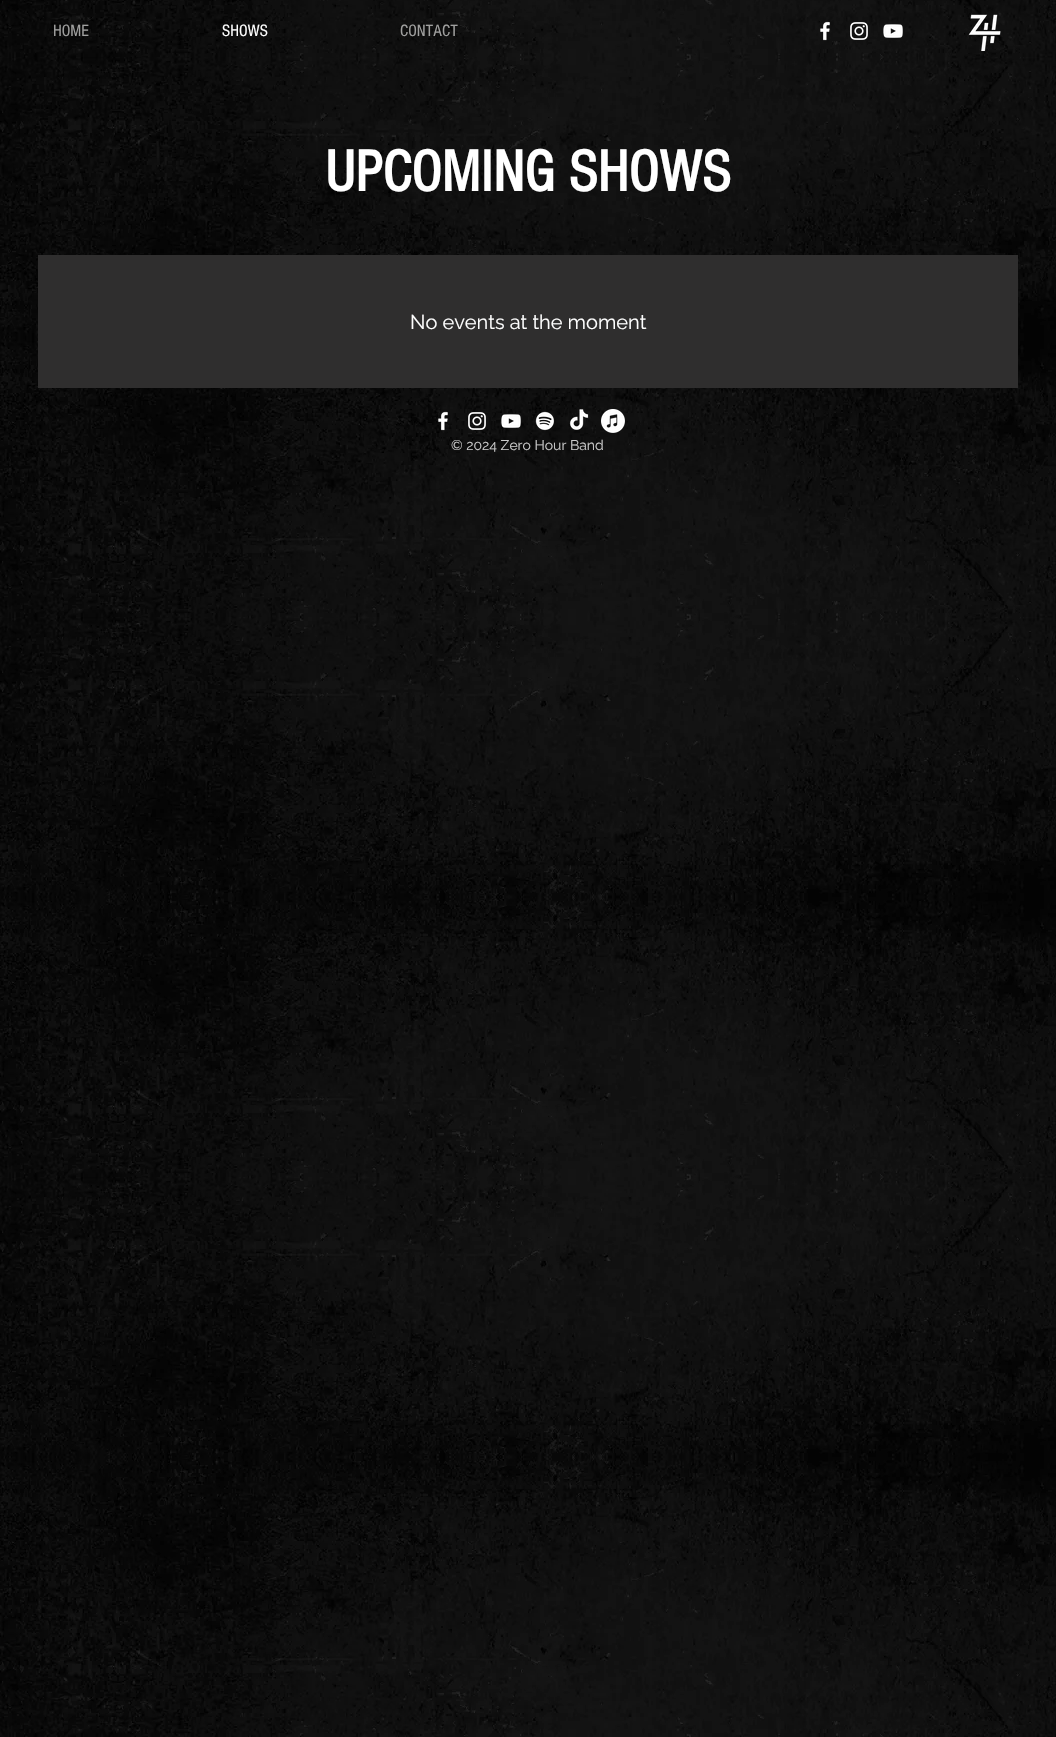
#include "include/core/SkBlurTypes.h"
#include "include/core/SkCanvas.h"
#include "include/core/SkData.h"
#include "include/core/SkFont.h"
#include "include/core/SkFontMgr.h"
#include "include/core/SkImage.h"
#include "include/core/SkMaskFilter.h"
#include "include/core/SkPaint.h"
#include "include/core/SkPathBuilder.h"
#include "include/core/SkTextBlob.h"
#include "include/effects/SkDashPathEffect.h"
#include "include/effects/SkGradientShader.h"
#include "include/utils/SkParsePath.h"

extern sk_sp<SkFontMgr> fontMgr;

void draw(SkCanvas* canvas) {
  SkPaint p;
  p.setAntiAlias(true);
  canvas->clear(SK_ColorWHITE);
  canvas->drawImageRect(SkImages::DeferredFromEncodedData(SkData::MakeFromFileName("images/1.png")), SkRect::MakeLTRB(0, 0, 1056, 1737), SkSamplingOptions());
  canvas->drawImageRect(SkImages::DeferredFromEncodedData(SkData::MakeFromFileName("images/2.png")), SkRect::MakeLTRB(820, 21, 830, 41), SkSamplingOptions());
  canvas->drawImageRect(SkImages::DeferredFromEncodedData(SkData::MakeFromFileName("images/3.png")), SkRect::MakeLTRB(850, 22, 868, 40), SkSamplingOptions());
  canvas->drawImageRect(SkImages::DeferredFromEncodedData(SkData::MakeFromFileName("images/4.png")), SkRect::MakeLTRB(883, 24, 903, 38), SkSamplingOptions());
  canvas->drawImageRect(SkImages::DeferredFromEncodedData(SkData::MakeFromFileName("images/5.png")), SkRect::MakeLTRB(968, 14, 1001, 51), SkSamplingOptions());
  p.setColor(SkColorSetRGB(47, 46, 46));
  canvas->drawRect(SkRect::MakeLTRB(38, 255, 1018, 388), p);
  canvas->drawImageRect(SkImages::DeferredFromEncodedData(SkData::MakeFromFileName("images/6.png")), SkRect::MakeLTRB(438, 411, 448, 431), SkSamplingOptions());
  canvas->drawImageRect(SkImages::DeferredFromEncodedData(SkData::MakeFromFileName("images/7.png")), SkRect::MakeLTRB(468, 412, 486, 430), SkSamplingOptions());
  canvas->drawImageRect(SkImages::DeferredFromEncodedData(SkData::MakeFromFileName("images/8.png")), SkRect::MakeLTRB(501, 414, 521, 428), SkSamplingOptions());
  canvas->drawImageRect(SkImages::DeferredFromEncodedData(SkData::MakeFromFileName("images/9.png")), SkRect::MakeLTRB(535, 411, 555, 431), SkSamplingOptions());
  canvas->drawImageRect(SkImages::DeferredFromEncodedData(SkData::MakeFromFileName("images/10.png")), SkRect::MakeLTRB(569, 409, 589, 430), SkSamplingOptions());
  canvas->drawImageRect(SkImages::DeferredFromEncodedData(SkData::MakeFromFileName("images/11.png")), SkRect::MakeLTRB(601, 409, 625, 433), SkSamplingOptions());
  SkFont font1(fontMgr->matchFamilyStyle("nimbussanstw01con", SkFontStyle::Normal()), 17);
  font1.setSubpixel(true);
  p.setColor(SkColorSetRGB(160, 160, 159));
  canvas->drawString("HOME", 53, 36, font1, p);
  p.setColor(SK_ColorWHITE);
  canvas->drawString("SHOWS", 222, 36, font1, p);
  p.setColor(SkColorSetRGB(160, 160, 159));
  canvas->drawString("CONTACT", 400, 36, font1, p);
  SkFont font2(fontMgr->matchFamilyStyle("nimbussanstw01con", SkFontStyle::Bold()), 60);
  font2.setSubpixel(true);
  p.setColor(SK_ColorWHITE);
  canvas->drawString("UPCOMING SHOWS", 325, 191, font2, p);
  SkFont font3(fontMgr->matchFamilyStyle("Raleway", SkFontStyle::Normal()), 20);
  font3.setSubpixel(true);
  canvas->drawString("No events at the moment", 410, 329, font3, p);
  SkFont font4(fontMgr->matchFamilyStyle("Raleway", SkFontStyle::Normal()), 14);
  font4.setSubpixel(true);
  p.setColor(SkColorSetRGB(204, 204, 204));
  canvas->drawString("© 2024 Zero Hour Band", 451, 450, font4, p);
}
